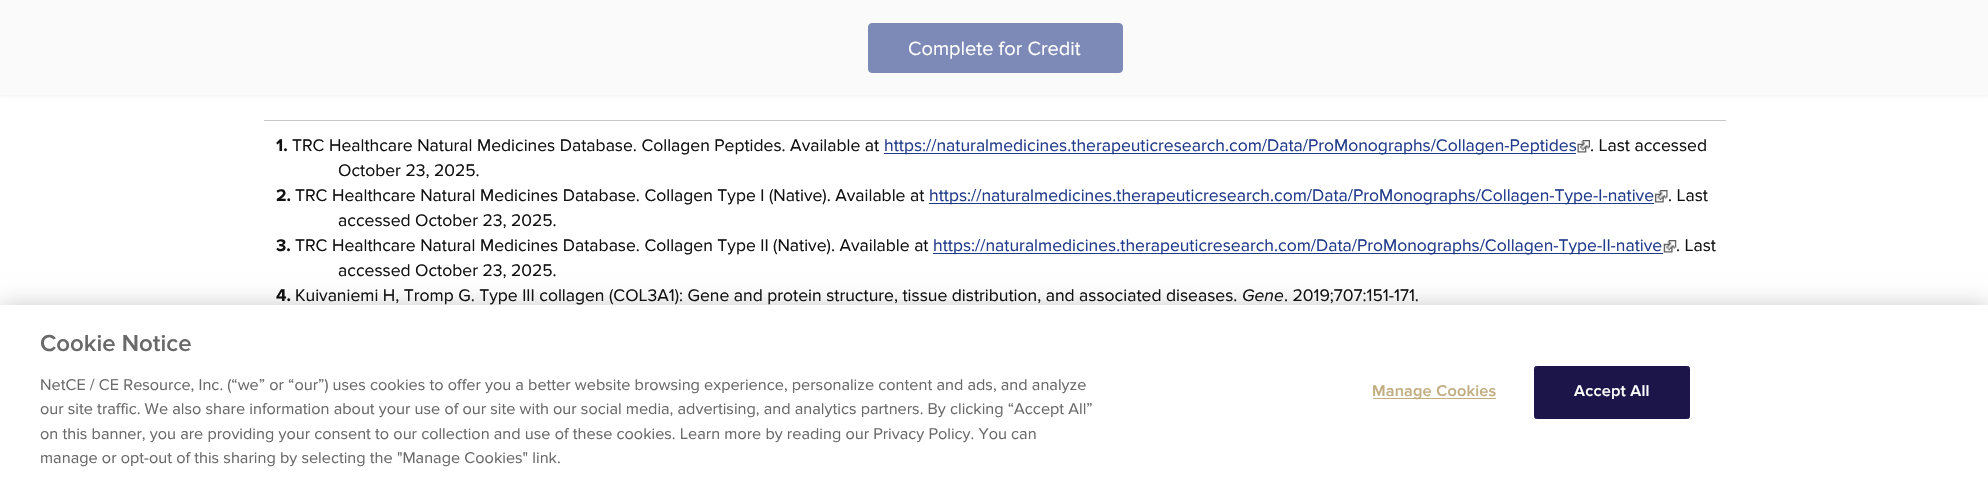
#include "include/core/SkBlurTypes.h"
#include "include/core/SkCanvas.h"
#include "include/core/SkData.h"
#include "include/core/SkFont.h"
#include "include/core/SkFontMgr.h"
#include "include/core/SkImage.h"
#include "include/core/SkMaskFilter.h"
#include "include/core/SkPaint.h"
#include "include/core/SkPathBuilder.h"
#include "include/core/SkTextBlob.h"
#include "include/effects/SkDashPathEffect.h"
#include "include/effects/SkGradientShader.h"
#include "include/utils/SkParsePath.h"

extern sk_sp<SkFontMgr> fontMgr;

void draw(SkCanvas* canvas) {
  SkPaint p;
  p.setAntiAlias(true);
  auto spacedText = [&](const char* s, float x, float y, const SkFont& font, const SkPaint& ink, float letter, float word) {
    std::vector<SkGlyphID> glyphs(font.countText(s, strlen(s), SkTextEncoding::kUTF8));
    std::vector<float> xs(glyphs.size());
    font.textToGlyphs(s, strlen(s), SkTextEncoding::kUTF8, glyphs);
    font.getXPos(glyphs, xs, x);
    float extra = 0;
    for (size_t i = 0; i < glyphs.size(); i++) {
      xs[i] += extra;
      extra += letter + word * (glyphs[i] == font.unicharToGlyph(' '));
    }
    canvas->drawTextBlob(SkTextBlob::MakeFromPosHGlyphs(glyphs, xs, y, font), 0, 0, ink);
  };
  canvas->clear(SK_ColorWHITE);
  p.setColor(SkColorSetARGB(26, 112, 112, 112));
  p.setMaskFilter(SkMaskFilter::MakeBlur(kNormal_SkBlurStyle, 2));
  canvas->drawRect(SkRect::MakeLTRB(0, 1, 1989, 96), p);
  p.setMaskFilter(nullptr);
  p.setColor(SkColorSetRGB(250, 250, 250));
  canvas->drawRect(SkRect::MakeLTRB(0, 1, 1988, 95), p);
  p.setColor(SkColorSetRGB(125, 137, 182));
  canvas->drawRoundRect(SkRect::MakeLTRB(868.5f, 23.5f, 1122.5f, 72.5f), 3.5f, 3.5f, p);
  p.setStyle(SkPaint::kStroke_Style);
  p.setStrokeWidth(1);
  canvas->drawRoundRect(SkRect::MakeLTRB(868.5f, 23.5f, 1122.5f, 72.5f), 3.5f, 3.5f, p);
  p.setStyle(SkPaint::kFill_Style);
  p.setColor(SkColorSetRGB(199, 199, 199));
  canvas->drawRect(SkRect::MakeLTRB(264, 120, 1726, 121), p);
  p.setColor(SkColorSetRGB(33, 59, 140));
  canvas->drawRect(SkRect::MakeLTRB(884, 153, 1576, 154), p);
  canvas->drawImageRect(SkImages::DeferredFromEncodedData(SkData::MakeFromFileName("images/1.png")), SkRect::MakeLTRB(1577, 140, 1590, 153), SkSamplingOptions());
  canvas->drawRect(SkRect::MakeLTRB(929, 203, 1654, 204), p);
  canvas->drawImageRect(SkImages::DeferredFromEncodedData(SkData::MakeFromFileName("images/2.png")), SkRect::MakeLTRB(1655, 190, 1668, 203), SkSamplingOptions());
  canvas->drawRect(SkRect::MakeLTRB(933, 253, 1663, 254), p);
  canvas->drawImageRect(SkImages::DeferredFromEncodedData(SkData::MakeFromFileName("images/3.png")), SkRect::MakeLTRB(1663, 240, 1677, 253), SkSamplingOptions());
  p.setColor(SkColorSetARGB(51, 0, 0, 0));
  p.setMaskFilter(SkMaskFilter::MakeBlur(kNormal_SkBlurStyle, 11));
  canvas->drawRect(SkRect::MakeLTRB(0, 305, 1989, 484), p);
  p.setMaskFilter(nullptr);
  p.setColor(SK_ColorWHITE);
  canvas->drawRect(SkRect::MakeLTRB(0, 305, 1988, 483), p);
  p.setColor(SkColorSetRGB(193, 173, 128));
  canvas->drawRect(SkRect::MakeLTRB(1373, 398, 1496, 399), p);
  p.setColor(SkColorSetRGB(27, 21, 73));
  canvas->drawRoundRect(SkRect::MakeLTRB(1534.5f, 366.5f, 1689.5f, 418.5f), 2, 2, p);
  p.setStyle(SkPaint::kStroke_Style);
  canvas->drawRoundRect(SkRect::MakeLTRB(1534.5f, 366.5f, 1689.5f, 418.5f), 2, 2, p);
  SkFont font1(fontMgr->matchFamilyStyle("Proxima Nova", SkFontStyle::Normal()), 20);
  font1.setSubpixel(true);
  p.setStyle(SkPaint::kFill_Style);
  p.setColor(SK_ColorWHITE);
  canvas->drawString("Complete for Credit", 908, 55, font1, p);
  SkFont font2(fontMgr->matchFamilyStyle("Proxima Nova", SkFontStyle::Bold()), 17.5f);
  font2.setSubpixel(true);
  p.setColor(SkColorSetRGB(17, 17, 17));
  canvas->drawString("1.", 276, 151, font2, p);
  SkFont font3(fontMgr->matchFamilyStyle("Proxima Nova", SkFontStyle::Normal()), 17.5f);
  font3.setSubpixel(true);
  canvas->drawString("TRC Healthcare Natural Medicines Database. Collagen Peptides. Available at", 292, 151, font3, p);
  p.setColor(SkColorSetRGB(33, 59, 140));
  canvas->drawString("https://naturalmedicines.therapeuticresearch.com/Data/ProMonographs/Collagen-Peptides", 884, 151, font3, p);
  p.setColor(SkColorSetRGB(17, 17, 17));
  canvas->drawString(". Last accessed", 1590, 151, font3, p);
  canvas->drawString("October 23, 2025.", 338, 176, font3, p);
  canvas->drawString("2.", 276, 201, font2, p);
  canvas->drawString("TRC Healthcare Natural Medicines Database. Collagen Type I (Native). Available at", 295, 201, font3, p);
  p.setColor(SkColorSetRGB(33, 59, 140));
  canvas->drawString("https://naturalmedicines.therapeuticresearch.com/Data/ProMonographs/Collagen-Type-I-native", 929, 201, font3, p);
  p.setColor(SkColorSetRGB(17, 17, 17));
  canvas->drawString(". Last", 1668, 201, font3, p);
  canvas->drawString("accessed October 23, 2025.", 338, 226, font3, p);
  canvas->drawString("3.", 276, 251, font2, p);
  canvas->drawString("TRC Healthcare Natural Medicines Database. Collagen Type II (Native). Available at", 295, 251, font3, p);
  p.setColor(SkColorSetRGB(33, 59, 140));
  canvas->drawString("https://naturalmedicines.therapeuticresearch.com/Data/ProMonographs/Collagen-Type-II-native", 933, 251, font3, p);
  p.setColor(SkColorSetRGB(17, 17, 17));
  canvas->drawString(". Last", 1676, 251, font3, p);
  canvas->drawString("accessed October 23, 2025.", 338, 276, font3, p);
  canvas->drawString("4.", 276, 301, font2, p);
  canvas->drawString("Kuivaniemi H, Tromp G. Type III collagen (COL3A1): Gene and protein structure, tissue distribution, and associated diseases.", 295, 301, font3, p);
  SkFont font4(fontMgr->matchFamilyStyle("Proxima Nova", SkFontStyle::Italic()), 17.5f);
  font4.setSubpixel(true);
  canvas->drawString("Gene", 1242, 301, font4, p);
  canvas->drawString(". 2019;707:151-171.", 1284, 301, font3, p);
  SkFont font5(fontMgr->matchFamilyStyle("Proxima Nova", SkFontStyle(600, SkFontStyle::kNormal_Width, SkFontStyle::kUpright_Slant)), 24);
  font5.setSubpixel(true);
  p.setColor(SkColorSetRGB(105, 105, 105));
  canvas->drawString("Cookie Notice", 40, 351, font5, p);
  SkFont font6(fontMgr->matchFamilyStyle("Proxima Nova", SkFontStyle::Normal()), 16.25f);
  font6.setSubpixel(true);
  canvas->drawString("NetCE / CE Resource, Inc. (“we” or “our”) uses cookies to offer you a better website browsing experience, personalize content and ads, and analyze", 40, 390, font6, p);
  canvas->drawString("our site traffic. We also share information about your use of our site with our social media, advertising, and analytics partners. By clicking “Accept All”", 40, 414, font6, p);
  canvas->drawString("on this banner, you are providing your consent to our collection and use of these cookies. Learn more by reading our Privacy Policy. You can", 40, 439, font6, p);
  canvas->drawString("manage or opt-out of this sharing by selecting the \"Manage Cookies\" link.", 40, 463, font6, p);
  SkFont font7(fontMgr->matchFamilyStyle("Proxima Nova", SkFontStyle(600, SkFontStyle::kNormal_Width, SkFontStyle::kUpright_Slant)), 16.25f);
  font7.setSubpixel(true);
  p.setColor(SkColorSetRGB(193, 173, 128));
  spacedText("Manage Cookies", 1372, 396, font7, p, 0.2f, 0);
  p.setColor(SK_ColorWHITE);
  spacedText("Accept All", 1574, 396, font7, p, 0.2f, 0);
}
